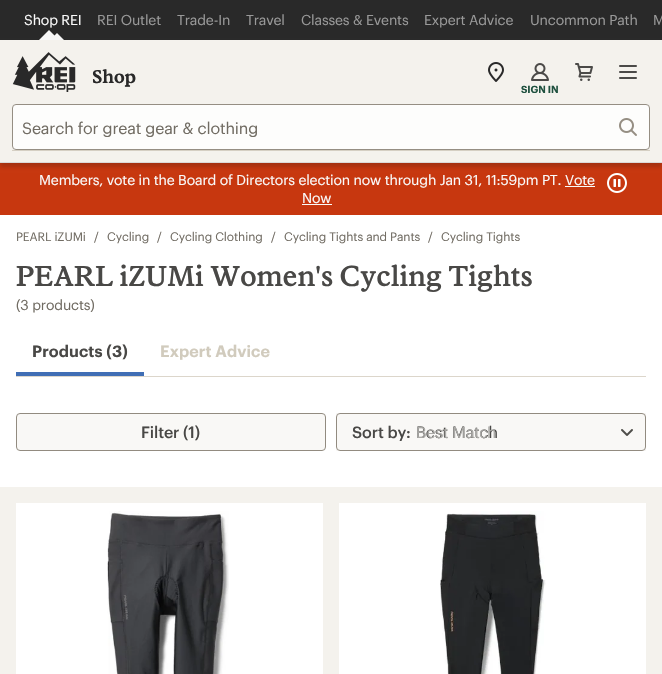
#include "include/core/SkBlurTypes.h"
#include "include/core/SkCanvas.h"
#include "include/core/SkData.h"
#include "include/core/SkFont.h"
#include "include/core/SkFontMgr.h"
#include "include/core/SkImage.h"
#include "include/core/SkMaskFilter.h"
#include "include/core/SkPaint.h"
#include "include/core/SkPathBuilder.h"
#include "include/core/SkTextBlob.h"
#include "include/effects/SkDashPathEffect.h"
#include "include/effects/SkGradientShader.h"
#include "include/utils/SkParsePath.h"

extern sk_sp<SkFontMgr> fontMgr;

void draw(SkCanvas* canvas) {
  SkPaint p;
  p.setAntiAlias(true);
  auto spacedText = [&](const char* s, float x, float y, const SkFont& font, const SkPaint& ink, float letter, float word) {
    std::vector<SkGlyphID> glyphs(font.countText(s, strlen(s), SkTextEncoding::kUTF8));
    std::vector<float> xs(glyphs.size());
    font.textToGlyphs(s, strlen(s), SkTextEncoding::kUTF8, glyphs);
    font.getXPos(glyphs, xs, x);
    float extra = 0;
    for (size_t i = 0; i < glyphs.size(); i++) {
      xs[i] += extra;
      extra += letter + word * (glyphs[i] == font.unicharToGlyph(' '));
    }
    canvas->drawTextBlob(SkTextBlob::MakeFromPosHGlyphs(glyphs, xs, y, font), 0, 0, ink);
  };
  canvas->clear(SK_ColorWHITE);
  p.setColor(SkColorSetRGB(41, 41, 41));
  canvas->drawRect(SkRect::MakeLTRB(0, 0, 662, 40), p);
  p.setColor(SkColorSetRGB(247, 247, 247));
  canvas->drawPath(SkPathBuilder().moveTo(60, 41).lineTo(38, 41).lineTo(49, 30).close().detach(), p);
  canvas->drawPath(SkPathBuilder().moveTo(65, 41).lineTo(49, 41).lineTo(57, 33).close().detach(), p);
  p.setColor(SkColorSetRGB(199, 55, 15));
  canvas->drawRect(SkRect::MakeLTRB(0, 163, 662, 215), p);
  canvas->drawImageRect(SkImages::DeferredFromEncodedData(SkData::MakeFromFileName("images/7.png")), SkRect::MakeLTRB(607, 173, 627, 193), SkSamplingOptions());
  p.setColor(SkColorSetARGB(51, 26, 26, 26));
  p.setMaskFilter(SkMaskFilter::MakeBlur(kNormal_SkBlurStyle, 2));
  canvas->drawRect(SkRect::MakeLTRB(0, 44, 662, 167), p);
  p.setMaskFilter(nullptr);
  p.setColor(SkColorSetRGB(244, 242, 237));
  canvas->drawRect(SkRect::MakeLTRB(0, 40, 662, 162), p);
  p.setColor(SkColorSetRGB(218, 218, 218));
  canvas->drawRect(SkRect::MakeLTRB(0, 162, 662, 163), p);
  canvas->drawImageRect(SkImages::DeferredFromEncodedData(SkData::MakeFromFileName("images/1.png")), SkRect::MakeLTRB(12, 52, 76, 92), SkSamplingOptions());
  canvas->drawImageRect(SkImages::DeferredFromEncodedData(SkData::MakeFromFileName("images/2.png")), SkRect::MakeLTRB(488, 62, 504, 82), SkSamplingOptions());
  canvas->drawImageRect(SkImages::DeferredFromEncodedData(SkData::MakeFromFileName("images/3.png")), SkRect::MakeLTRB(575, 63, 593, 81), SkSamplingOptions());
  canvas->drawImageRect(SkImages::DeferredFromEncodedData(SkData::MakeFromFileName("images/4.png")), SkRect::MakeLTRB(619, 65, 637, 79), SkSamplingOptions());
  canvas->drawImageRect(SkImages::DeferredFromEncodedData(SkData::MakeFromFileName("images/5.png")), SkRect::MakeLTRB(531, 63, 549, 81), SkSamplingOptions());
  p.setColor(SkColorSetRGB(253, 253, 252));
  canvas->drawRoundRect(SkRect::MakeLTRB(12.5f, 104.5f, 649.5f, 149.5f), 3.5f, 3.5f, p);
  p.setStyle(SkPaint::kStroke_Style);
  p.setStrokeWidth(1);
  p.setColor(SkColorSetRGB(149, 142, 131));
  canvas->drawRoundRect(SkRect::MakeLTRB(12.5f, 104.5f, 649.5f, 149.5f), 3.5f, 3.5f, p);
  p.setStyle(SkPaint::kFill_Style);
  p.setColor(SkColorSetRGB(213, 207, 195));
  canvas->drawRect(SkRect::MakeLTRB(12, 150, 650, 151), p);
  canvas->drawImageRect(SkImages::DeferredFromEncodedData(SkData::MakeFromFileName("images/6.png")), SkRect::MakeLTRB(619, 118, 637, 136), SkSamplingOptions());
  p.setColor(SkColorSetRGB(250, 251, 249));
  canvas->drawRect(SkRect::MakeLTRB(302, 204, 332, 205), p);
  p.setColor(SkColorSetRGB(64, 110, 181));
  canvas->drawRect(SkRect::MakeLTRB(16, 372, 144, 376), p);
  p.setColor(SkColorSetRGB(220, 214, 203));
  canvas->drawRect(SkRect::MakeLTRB(16, 376, 646, 377), p);
  p.setColor(SkColorSetRGB(249, 248, 246));
  canvas->drawRoundRect(SkRect::MakeLTRB(16.5f, 413.5f, 325.5f, 450.5f), 3.5f, 3.5f, p);
  p.setStyle(SkPaint::kStroke_Style);
  p.setColor(SkColorSetRGB(146, 139, 128));
  canvas->drawRoundRect(SkRect::MakeLTRB(16.5f, 413.5f, 325.5f, 450.5f), 3.5f, 3.5f, p);
  p.setStyle(SkPaint::kFill_Style);
  p.setColor(SkColorSetRGB(249, 248, 246));
  canvas->drawRect(SkRect::MakeLTRB(336, 413, 646, 451), p);
  canvas->drawImageRect(SkImages::DeferredFromEncodedData(SkData::MakeFromFileName("images/8.png")), SkRect::MakeLTRB(621, 429, 633, 436), SkSamplingOptions());
  p.setStyle(SkPaint::kStroke_Style);
  p.setColor(SkColorSetRGB(146, 139, 128));
  canvas->drawRoundRect(SkRect::MakeLTRB(336.5f, 413.5f, 645.5f, 450.5f), 3.5f, 3.5f, p);
  p.setStyle(SkPaint::kFill_Style);
  p.setColor(SkColorSetRGB(244, 242, 237));
  canvas->drawRect(SkRect::MakeLTRB(0, 487, 662, 674), p);
  p.setColor(SK_ColorWHITE);
  canvas->drawRect(SkRect::MakeLTRB(16, 503, 323, 674), p);
  canvas->drawImageRect(SkImages::DeferredFromEncodedData(SkData::MakeFromFileName("images/9.png")), SkRect::MakeLTRB(107, 511, 229, 674), SkSamplingOptions());
  canvas->drawRect(SkRect::MakeLTRB(339, 503, 646, 674), p);
  canvas->drawImageRect(SkImages::DeferredFromEncodedData(SkData::MakeFromFileName("images/10.png")), SkRect::MakeLTRB(440, 511, 546, 674), SkSamplingOptions());
  SkFont font1(fontMgr->matchFamilyStyle("Graphik", SkFontStyle::Normal()), 14);
  font1.setSubpixel(true);
  p.setColor(SkColorSetRGB(250, 250, 250));
  spacedText("Shop REI", 24, 25, font1, p, -0.15f, 0);
  p.setColor(SkColorSetRGB(153, 153, 153));
  spacedText("REI Outlet", 97, 25, font1, p, -0.15f, 0);
  spacedText("Trade-In", 177, 25, font1, p, -0.15f, 0);
  spacedText("Travel", 246, 25, font1, p, -0.15f, 0);
  spacedText("Classes & Events", 301, 25, font1, p, -0.15f, 0);
  spacedText("Expert Advice", 424, 25, font1, p, -0.15f, 0);
  spacedText("Uncommon Path", 530, 25, font1, p, -0.15f, 0);
  spacedText("M", 653, 25, font1, p, -0.15f, 0);
  SkFont font2(fontMgr->matchFamilyStyle("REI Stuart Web", SkFontStyle(600, SkFontStyle::kNormal_Width, SkFontStyle::kUpright_Slant)), 18);
  font2.setSubpixel(true);
  p.setColor(SkColorSetRGB(41, 41, 41));
  canvas->drawString("Shop", 92, 83, font2, p);
  SkFont font3(fontMgr->matchFamilyStyle("Graphik", SkFontStyle(600, SkFontStyle::kNormal_Width, SkFontStyle::kUpright_Slant)), 10);
  font3.setSubpixel(true);
  p.setColor(SkColorSetRGB(31, 81, 63));
  spacedText("SIGN IN", 521, 93, font3, p, -0.1f, 0);
  SkFont font4(fontMgr->matchFamilyStyle("Graphik", SkFontStyle::Normal()), 16);
  font4.setSubpixel(true);
  p.setColor(SkColorSetRGB(113, 108, 99));
  spacedText("Search for great gear & clothing", 22, 134, font4, p, -0.15f, 0);
  p.setColor(SkColorSetRGB(250, 250, 250));
  spacedText("Members, vote in the Board of Directors election now through Jan 31, 11:59pm PT. Vote", 39, 185, font1, p, -0.15f, 0);
  p.setColor(SkColorSetRGB(250, 251, 249));
  canvas->drawRect(SkRect::MakeLTRB(565, 186, 595, 187), p);
  p.setColor(SkColorSetRGB(250, 250, 250));
  spacedText("Now", 302, 203, font1, p, -0.15f, 0);
  SkFont font5(fontMgr->matchFamilyStyle("Graphik", SkFontStyle::Normal()), 12);
  font5.setSubpixel(true);
  p.setColor(SkColorSetRGB(113, 108, 99));
  spacedText("PEARL iZUMi", 16, 241, font5, p, -0.1f, 0);
  spacedText("/", 94, 241, font5, p, -0.1f, 0);
  spacedText("Cycling", 107, 241, font5, p, -0.1f, 0);
  spacedText("/", 157, 241, font5, p, -0.1f, 0);
  spacedText("Cycling Clothing", 170, 241, font5, p, -0.1f, 0);
  spacedText("/", 271, 241, font5, p, -0.1f, 0);
  spacedText("Cycling Tights and Pants", 284, 241, font5, p, -0.1f, 0);
  spacedText("/", 428, 241, font5, p, -0.1f, 0);
  spacedText("Cycling Tights", 441, 241, font5, p, -0.1f, 0);
  SkFont font6(fontMgr->matchFamilyStyle("REI Stuart Web", SkFontStyle(500, SkFontStyle::kNormal_Width, SkFontStyle::kUpright_Slant)), 28);
  font6.setSubpixel(true);
  p.setColor(SkColorSetRGB(73, 72, 70));
  canvas->drawString("PEARL iZUMi Women's Cycling Tights", 16, 286, font6, p);
  p.setColor(SkColorSetRGB(113, 108, 99));
  spacedText("(3 products)", 16, 310, font1, p, -0.15f, 0);
  SkFont font7(fontMgr->matchFamilyStyle("Graphik", SkFontStyle(600, SkFontStyle::kNormal_Width, SkFontStyle::kUpright_Slant)), 16);
  font7.setSubpixel(true);
  p.setColor(SkColorSetRGB(73, 72, 70));
  spacedText("Products (3)", 32, 357, font7, p, 0.1f, 0);
  p.setColor(SkColorSetRGB(209, 203, 189));
  spacedText("Expert Advice", 160, 357, font7, p, 0.1f, 0);
  SkFont font8(fontMgr->matchFamilyStyle("Graphik", SkFontStyle(500, SkFontStyle::kNormal_Width, SkFontStyle::kUpright_Slant)), 16);
  font8.setSubpixel(true);
  p.setColor(SkColorSetRGB(73, 72, 70));
  spacedText("Filter (1)", 141, 438, font8, p, -0.1f, 0);
  spacedText("Sort by:", 352, 438, font8, p, -0.1f, 0);
  spacedText("Best Match", 416, 438, font4, p, -0.15f, 0);
  SkFont font9(fontMgr->matchFamilyStyle("Liberation Sans", SkFontStyle::Normal()), 16);
  font9.setSubpixel(true);
  p.setColor(SkColorSetRGB(171, 170, 167));
  canvas->drawString("Best Match", 416, 438, font9, p);
}
